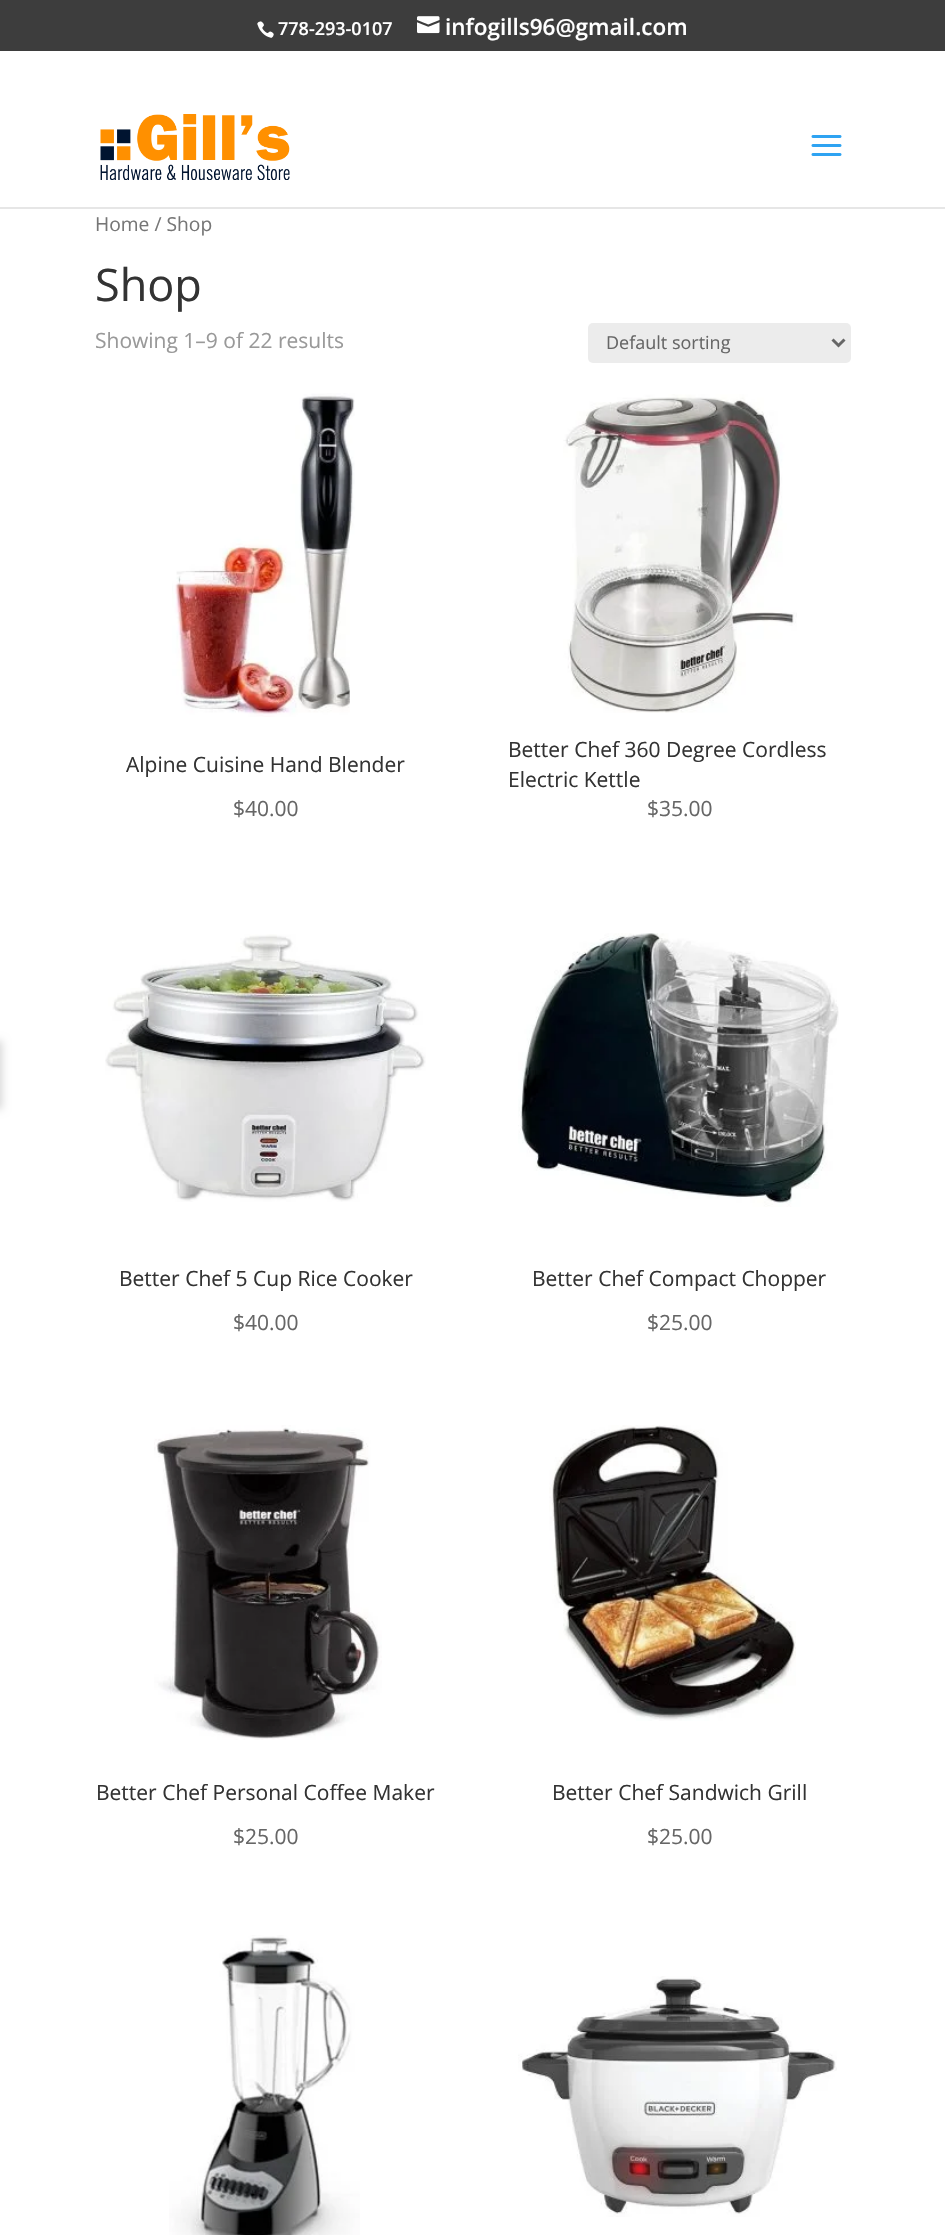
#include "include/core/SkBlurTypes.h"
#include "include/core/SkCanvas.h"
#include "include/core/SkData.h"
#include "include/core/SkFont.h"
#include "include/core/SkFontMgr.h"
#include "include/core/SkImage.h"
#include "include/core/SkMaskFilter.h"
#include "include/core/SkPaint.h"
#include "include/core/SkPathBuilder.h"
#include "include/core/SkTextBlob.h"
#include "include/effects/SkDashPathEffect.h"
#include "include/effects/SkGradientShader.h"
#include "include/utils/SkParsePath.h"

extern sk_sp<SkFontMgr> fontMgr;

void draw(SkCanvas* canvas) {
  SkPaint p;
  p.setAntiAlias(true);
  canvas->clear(SK_ColorWHITE);
  p.setColor(SkColorSetARGB(41, 0, 0, 0));
  p.setMaskFilter(SkMaskFilter::MakeBlur(kNormal_SkBlurStyle, 4.5f));
  canvas->drawRect(SkRect::MakeLTRB(-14, 1041, 2, 1109), p);
  p.setMaskFilter(nullptr);
  p.setColor(SkColorSetRGB(61, 61, 61));
  canvas->drawRect(SkRect::MakeLTRB(0, 0, 945, 51), p);
  canvas->drawImageRect(SkImages::DeferredFromEncodedData(SkData::MakeFromFileName("images/1.png")), SkRect::MakeLTRB(257, 21, 274, 38), SkSamplingOptions());
  canvas->drawImageRect(SkImages::DeferredFromEncodedData(SkData::MakeFromFileName("images/2.png")), SkRect::MakeLTRB(417, 16, 440, 34), SkSamplingOptions());
  p.setColor(SkColorSetRGB(230, 230, 230));
  canvas->drawRect(SkRect::MakeLTRB(0, 207, 945, 209), p);
  canvas->drawImageRect(SkImages::DeferredFromEncodedData(SkData::MakeFromFileName("images/3.png")), SkRect::MakeLTRB(100, 114, 290, 180), SkSamplingOptions());
  canvas->drawImageRect(SkImages::DeferredFromEncodedData(SkData::MakeFromFileName("images/4.png")), SkRect::MakeLTRB(811, 135, 842, 156), SkSamplingOptions());
  p.setColor(SkColorSetRGB(236, 236, 236));
  canvas->drawRoundRect(SkRect::MakeLTRB(588, 323, 851, 363), 5, 5, p);
  p.setStyle(SkPaint::kStroke_Style);
  p.setStrokeWidth(3);
  p.setColor(SkColorSetRGB(102, 102, 102));
  canvas->drawPath(SkPathBuilder().moveTo(832.5f, 339.5f).lineTo(838.5f, 345.5f).lineTo(844.5f, 339.5f).detach(), p);
  canvas->drawImageRect(SkImages::DeferredFromEncodedData(SkData::MakeFromFileName("images/5.png")), SkRect::MakeLTRB(172, 393, 355, 717), SkSamplingOptions());
  canvas->drawImageRect(SkImages::DeferredFromEncodedData(SkData::MakeFromFileName("images/6.png")), SkRect::MakeLTRB(563, 394, 797, 713), SkSamplingOptions());
  canvas->drawImageRect(SkImages::DeferredFromEncodedData(SkData::MakeFromFileName("images/7.png")), SkRect::MakeLTRB(105, 934, 426, 1202), SkSamplingOptions());
  canvas->drawImageRect(SkImages::DeferredFromEncodedData(SkData::MakeFromFileName("images/8.png")), SkRect::MakeLTRB(518, 933, 839, 1207), SkSamplingOptions());
  canvas->drawImageRect(SkImages::DeferredFromEncodedData(SkData::MakeFromFileName("images/9.png")), SkRect::MakeLTRB(154, 1425, 382, 1740), SkSamplingOptions());
  canvas->drawImageRect(SkImages::DeferredFromEncodedData(SkData::MakeFromFileName("images/10.png")), SkRect::MakeLTRB(549, 1425, 796, 1721), SkSamplingOptions());
  canvas->drawImageRect(SkImages::DeferredFromEncodedData(SkData::MakeFromFileName("images/11.png")), SkRect::MakeLTRB(169, 1935, 360, 2235), SkSamplingOptions());
  canvas->drawImageRect(SkImages::DeferredFromEncodedData(SkData::MakeFromFileName("images/12.png")), SkRect::MakeLTRB(518, 1976, 837, 2217), SkSamplingOptions());
  SkFont font1(fontMgr->matchFamilyStyle("Open Sans", SkFontStyle(600, SkFontStyle::kNormal_Width, SkFontStyle::kUpright_Slant)), 18);
  font1.setSubpixel(true);
  p.setStyle(SkPaint::kFill_Style);
  p.setColor(SK_ColorWHITE);
  canvas->drawString("778-293-0107", 278, 35, font1, p);
  SkFont font2(fontMgr->matchFamilyStyle("Open Sans", SkFontStyle(600, SkFontStyle::kNormal_Width, SkFontStyle::kUpright_Slant)), 22.5f);
  font2.setSubpixel(true);
  canvas->drawString("infogills96@gmail.com", 445, 35, font2, p);
  SkFont font3(fontMgr->matchFamilyStyle("Open Sans", SkFontStyle::Normal()), 19.25f);
  font3.setSubpixel(true);
  p.setColor(SkColorSetRGB(118, 118, 118));
  canvas->drawString("Home / Shop", 95, 231, font3, p);
  SkFont font4(fontMgr->matchFamilyStyle("Open Sans", SkFontStyle::Normal()), 45);
  font4.setSubpixel(true);
  p.setColor(SkColorSetRGB(51, 51, 51));
  canvas->drawString("Shop", 95, 301, font4, p);
  SkFont font5(fontMgr->matchFamilyStyle("Open Sans", SkFontStyle::Normal()), 21);
  font5.setSubpixel(true);
  p.setColor(SkColorSetRGB(153, 153, 153));
  canvas->drawString("Showing 1–9 of 22 results", 95, 348, font5, p);
  SkFont font6(fontMgr->matchFamilyStyle("Open Sans", SkFontStyle::Normal()), 18);
  font6.setSubpixel(true);
  p.setColor(SkColorSetRGB(102, 102, 102));
  canvas->drawString("Default sorting", 606, 349, font6, p);
  p.setColor(SkColorSetRGB(51, 51, 51));
  canvas->drawString("Alpine Cuisine Hand Blender", 126, 772, font5, p);
  p.setColor(SkColorSetRGB(102, 102, 102));
  canvas->drawString("$40.00", 233, 816, font5, p);
  p.setColor(SkColorSetRGB(51, 51, 51));
  canvas->drawString("Better Chef 360 Degree Cordless", 508, 757, font5, p);
  canvas->drawString("Electric Kettle", 508, 787, font5, p);
  p.setColor(SkColorSetRGB(102, 102, 102));
  canvas->drawString("$35.00", 647, 816, font5, p);
  p.setColor(SkColorSetRGB(51, 51, 51));
  canvas->drawString("Better Chef 5 Cup Rice Cooker", 119, 1286, font5, p);
  p.setColor(SkColorSetRGB(102, 102, 102));
  canvas->drawString("$40.00", 233, 1330, font5, p);
  p.setColor(SkColorSetRGB(51, 51, 51));
  canvas->drawString("Better Chef Compact Chopper", 532, 1286, font5, p);
  p.setColor(SkColorSetRGB(102, 102, 102));
  canvas->drawString("$25.00", 647, 1330, font5, p);
  p.setColor(SkColorSetRGB(51, 51, 51));
  canvas->drawString("Better Chef Personal Coffee Maker", 96, 1800, font5, p);
  p.setColor(SkColorSetRGB(102, 102, 102));
  canvas->drawString("$25.00", 233, 1844, font5, p);
  p.setColor(SkColorSetRGB(51, 51, 51));
  canvas->drawString("Better Chef Sandwich Grill", 552, 1800, font5, p);
  p.setColor(SkColorSetRGB(102, 102, 102));
  canvas->drawString("$25.00", 647, 1844, font5, p);
}
